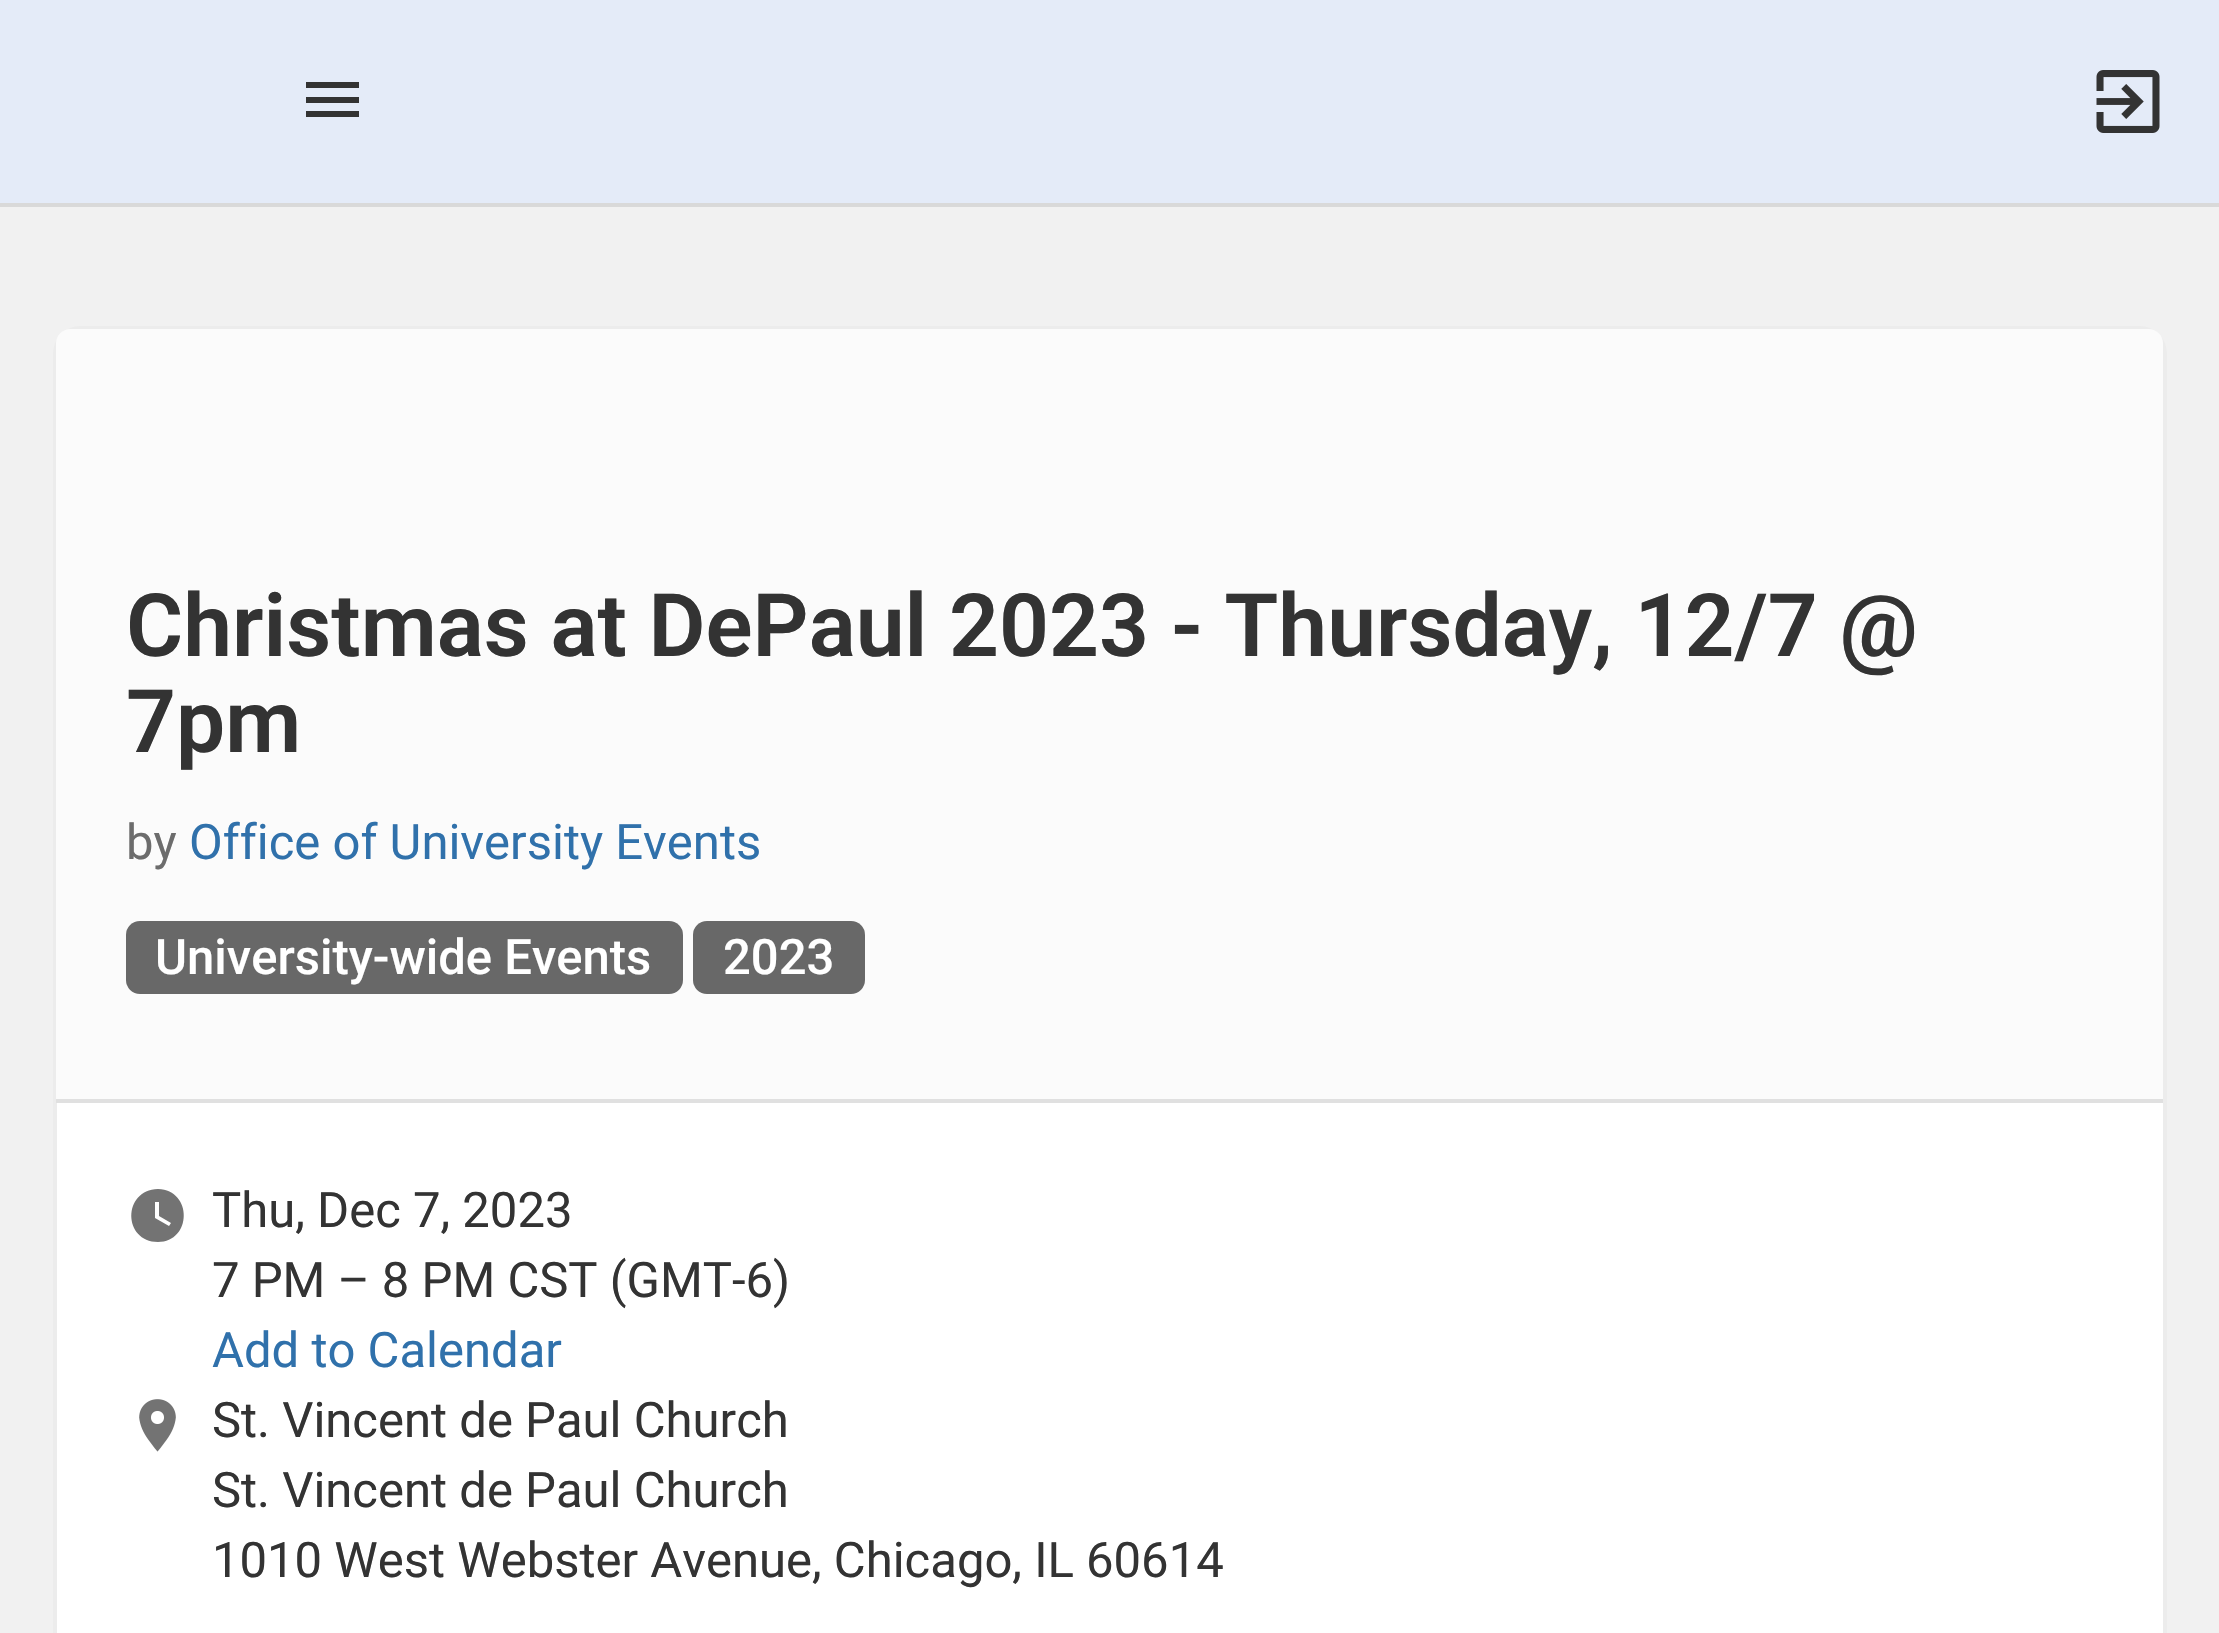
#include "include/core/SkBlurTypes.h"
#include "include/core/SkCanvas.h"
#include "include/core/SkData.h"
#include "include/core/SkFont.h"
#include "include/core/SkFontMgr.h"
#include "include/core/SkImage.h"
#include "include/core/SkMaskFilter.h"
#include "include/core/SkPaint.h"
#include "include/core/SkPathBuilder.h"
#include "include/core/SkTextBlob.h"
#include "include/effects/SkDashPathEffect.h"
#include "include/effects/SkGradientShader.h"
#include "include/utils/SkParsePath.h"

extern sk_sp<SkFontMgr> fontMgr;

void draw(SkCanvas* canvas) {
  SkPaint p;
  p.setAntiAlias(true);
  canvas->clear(SkColorSetRGB(241, 241, 241));
  p.setColor(SkColorSetRGB(228, 235, 248));
  canvas->drawRect(SkRect::MakeLTRB(0, 0, 2219, 203), p);
  p.setColor(SkColorSetRGB(217, 217, 217));
  canvas->drawRect(SkRect::MakeLTRB(0, 203, 2219, 207), p);
  p.setColor(SkColorSetRGB(51, 51, 51));
  canvas->drawPath(SkPathBuilder().moveTo(306, 82).lineTo(359, 82).lineTo(359, 88).lineTo(306, 88).close().moveTo(306, 97).lineTo(359, 97).lineTo(359, 103).lineTo(306, 103).close().moveTo(306, 111).lineTo(359, 111).lineTo(359, 117).lineTo(306, 117).close().detach(), p);
  canvas->drawImageRect(SkImages::DeferredFromEncodedData(SkData::MakeFromFileName("images/1.png")), SkRect::MakeLTRB(2096, 70, 2160, 133), SkSamplingOptions());
  p.setColor(SK_ColorWHITE);
  canvas->drawRoundRect(SkRect::MakeLTRB(55, 328, 2165, 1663), 26, 26, p);
  p.setStyle(SkPaint::kStroke_Style);
  p.setStrokeWidth(4);
  p.setColor(SkColorSetRGB(236, 236, 236));
  canvas->drawRoundRect(SkRect::MakeLTRB(55, 328, 2165, 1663), 26, 26, p);
  p.setStyle(SkPaint::kFill_Style);
  p.setColor(SkColorSetRGB(251, 251, 251));
  canvas->drawPath(SkPathBuilder().moveTo(70, 329).lineTo(2149, 329).cubicTo(2156.5f, 329, 2163, 335.5f, 2163, 343).lineTo(2163, 1099).lineTo(56, 1099).lineTo(56, 343).cubicTo(56, 335.5f, 62.5f, 329, 70, 329).close().detach(), p);
  p.setColor(SkColorSetRGB(104, 104, 104));
  canvas->drawRoundRect(SkRect::MakeLTRB(126, 921, 683, 994), 14, 14, p);
  canvas->drawRoundRect(SkRect::MakeLTRB(693, 921, 865, 994), 14, 14, p);
  p.setColor(SkColorSetRGB(224, 224, 224));
  canvas->drawRect(SkRect::MakeLTRB(56, 1099, 2163, 1103), p);
  p.setColor(SkColorSetRGB(115, 115, 115));
  canvas->drawPath(SkPathBuilder().moveTo(158, 1189).cubicTo(122, 1190, 123, 1242, 158, 1242).cubicTo(192, 1242, 193, 1190, 158, 1189).close().moveTo(169, 1226).lineTo(155, 1218).lineTo(155, 1202).lineTo(159, 1202).lineTo(159, 1216).lineTo(171, 1223).close().detach(), p);
  canvas->drawImageRect(SkImages::DeferredFromEncodedData(SkData::MakeFromFileName("images/2.png")), SkRect::MakeLTRB(139, 1399, 176, 1452), SkSamplingOptions());
  SkFont font1(fontMgr->matchFamilyStyle("Roboto", SkFontStyle(600, SkFontStyle::kNormal_Width, SkFontStyle::kUpright_Slant)), 87.5f);
  font1.setSubpixel(true);
  p.setColor(SkColorSetRGB(51, 51, 51));
  canvas->drawString("Christmas at DePaul 2023 - Thursday, 12/7 @", 126, 656, font1, p);
  canvas->drawString("7pm", 126, 752, font1, p);
  SkFont font2(fontMgr->matchFamilyStyle("Roboto", SkFontStyle::Normal()), 49);
  font2.setSubpixel(true);
  p.setColor(SkColorSetRGB(108, 108, 108));
  canvas->drawString("by", 126, 859, font2, p);
  p.setColor(SkColorSetRGB(48, 113, 171));
  canvas->drawString("Office of University Events", 189, 859, font2, p);
  SkFont font3(fontMgr->matchFamilyStyle("Roboto", SkFontStyle(500, SkFontStyle::kNormal_Width, SkFontStyle::kUpright_Slant)), 49);
  font3.setSubpixel(true);
  p.setColor(SK_ColorWHITE);
  canvas->drawString("University-wide Events", 155, 974, font3, p);
  canvas->drawString("2023", 723, 974, font3, p);
  p.setColor(SkColorSetRGB(51, 51, 51));
  canvas->drawString("Thu, Dec 7, 2023", 212, 1227, font2, p);
  canvas->drawString("7 PM – 8 PM CST (GMT-6)", 212, 1297, font2, p);
  p.setColor(SkColorSetRGB(48, 113, 171));
  canvas->drawString("Add to Calendar", 212, 1367, font2, p);
  p.setColor(SkColorSetRGB(51, 51, 51));
  canvas->drawString("St. Vincent de Paul Church", 212, 1437, font2, p);
  canvas->drawString("St. Vincent de Paul Church", 212, 1507, font2, p);
  canvas->drawString("1010 West Webster Avenue, Chicago, IL 60614", 212, 1577, font2, p);
}
